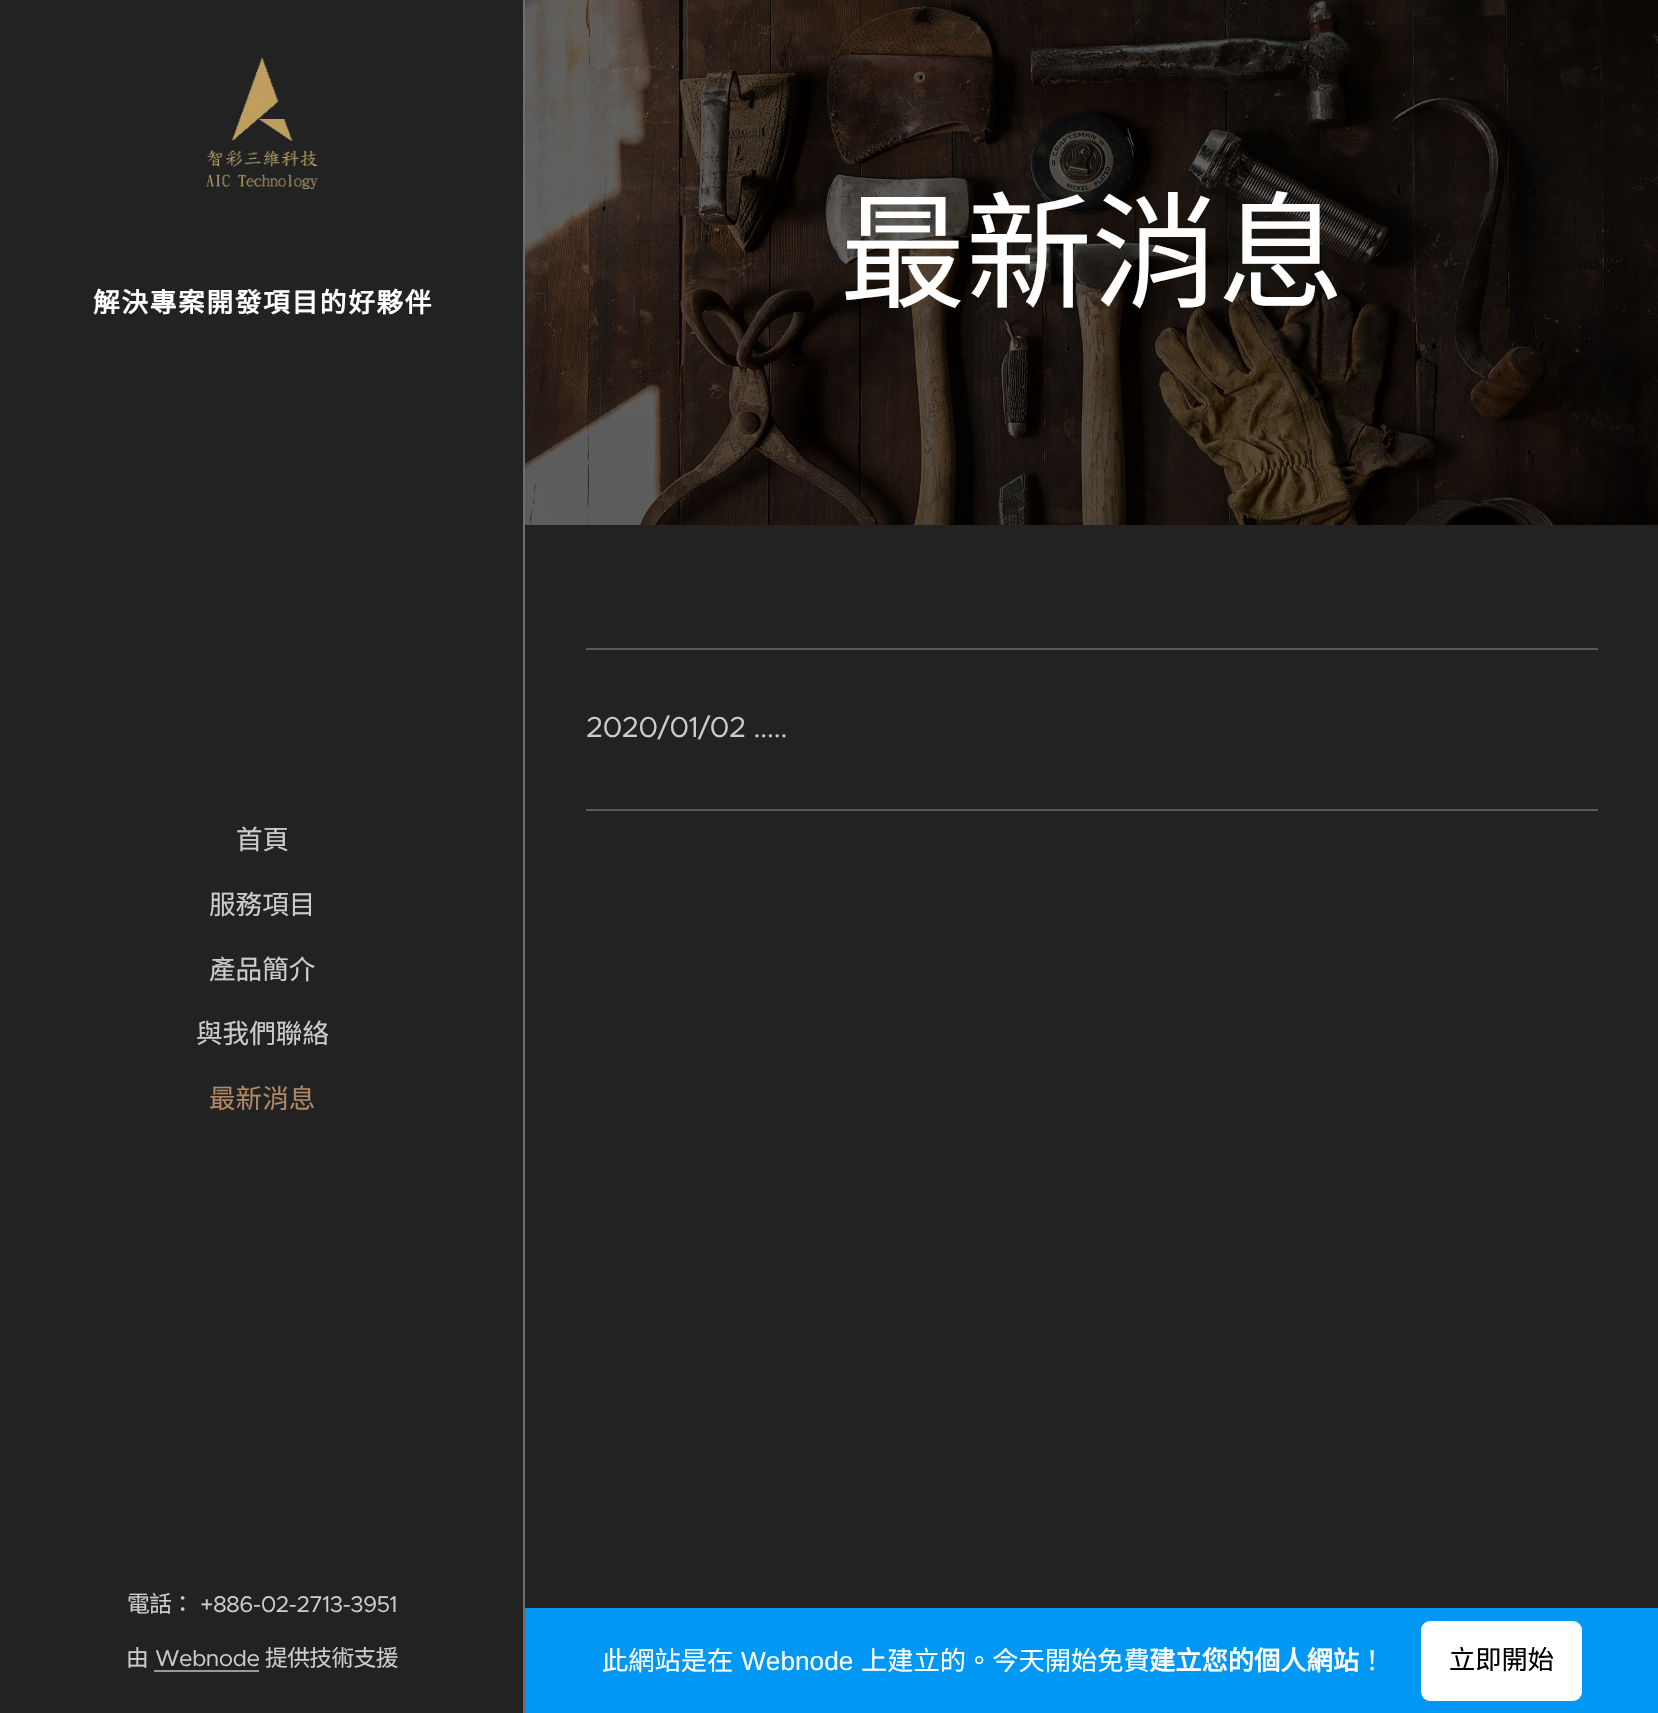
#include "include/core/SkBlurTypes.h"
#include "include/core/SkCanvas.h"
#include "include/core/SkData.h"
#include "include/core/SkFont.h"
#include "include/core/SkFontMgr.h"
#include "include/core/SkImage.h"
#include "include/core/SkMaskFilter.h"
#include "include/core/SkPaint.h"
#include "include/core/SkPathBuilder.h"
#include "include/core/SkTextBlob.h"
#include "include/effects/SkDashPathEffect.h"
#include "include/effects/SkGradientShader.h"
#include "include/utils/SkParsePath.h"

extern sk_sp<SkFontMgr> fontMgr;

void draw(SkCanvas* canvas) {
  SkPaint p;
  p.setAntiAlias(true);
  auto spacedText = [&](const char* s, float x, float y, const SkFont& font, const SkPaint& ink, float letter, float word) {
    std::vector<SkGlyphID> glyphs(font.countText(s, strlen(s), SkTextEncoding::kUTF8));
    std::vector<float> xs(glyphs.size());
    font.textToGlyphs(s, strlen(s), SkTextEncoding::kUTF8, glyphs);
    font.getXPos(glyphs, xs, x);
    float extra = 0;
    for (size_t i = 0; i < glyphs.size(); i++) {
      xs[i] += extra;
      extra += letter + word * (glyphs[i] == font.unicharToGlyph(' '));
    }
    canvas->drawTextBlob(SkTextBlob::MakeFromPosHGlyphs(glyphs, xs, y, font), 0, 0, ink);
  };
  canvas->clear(SK_ColorWHITE);
  p.setColor(SkColorSetRGB(34, 34, 34));
  canvas->drawRect(SkRect::MakeLTRB(0, 0, 523, 1713), p);
  canvas->drawImageRect(SkImages::DeferredFromEncodedData(SkData::MakeFromFileName("images/1.png")), SkRect::MakeLTRB(206, 57, 319, 189), SkSamplingOptions());
  p.setColor(SkColorSetRGB(110, 110, 110));
  canvas->drawRect(SkRect::MakeLTRB(523, 0, 525, 1713), p);
  canvas->drawImageRect(SkImages::DeferredFromEncodedData(SkData::MakeFromFileName("images/2.png")), SkRect::MakeLTRB(525, 0, 1658, 525), SkSamplingOptions());
  p.setColor(SkColorSetRGB(34, 34, 34));
  canvas->drawRect(SkRect::MakeLTRB(525, 525, 1658, 1608), p);
  p.setColor(SkColorSetRGB(90, 90, 90));
  canvas->drawRect(SkRect::MakeLTRB(586, 648, 1598, 650), p);
  canvas->drawRect(SkRect::MakeLTRB(586, 809, 1598, 811), p);
  p.setColor(SkColorSetRGB(153, 153, 153));
  canvas->drawRect(SkRect::MakeLTRB(154, 1670, 259, 1672), p);
  p.setColor(SkColorSetRGB(0, 151, 245));
  canvas->drawRect(SkRect::MakeLTRB(525, 1608, 1658, 1713), p);
  p.setColor(SK_ColorWHITE);
  canvas->drawRoundRect(SkRect::MakeLTRB(1421, 1621, 1582, 1701), 9, 9, p);
  SkFont font1(fontMgr->matchFamilyStyle("Noto Sans CJK TC", SkFontStyle::Bold()), 26.6f);
  font1.setSubpixel(true);
  spacedText("解決專案開發項目的好夥伴", 93, 312, font1, p, 1.75f, 0);
  SkFont font2(fontMgr->matchFamilyStyle("Noto Sans CJK TC", SkFontStyle::Normal()), 26.6f);
  font2.setSubpixel(true);
  p.setColor(SkColorSetRGB(204, 204, 204));
  canvas->drawString("首頁", 236, 849, font2, p);
  canvas->drawString("服務項目", 209, 914, font2, p);
  canvas->drawString("產品簡介", 209, 979, font2, p);
  canvas->drawString("與我們聯絡", 196, 1043, font2, p);
  p.setColor(SkColorSetRGB(179, 136, 101));
  canvas->drawString("最新消息", 209, 1108, font2, p);
  SkFont font3(fontMgr->matchFamilyStyle("Noto Sans CJK TC", SkFontStyle::Normal()), 126);
  font3.setSubpixel(true);
  p.setColor(SK_ColorWHITE);
  canvas->drawString("最新消息", 840, 298, font3, p);
  SkFont font4(fontMgr->matchFamilyStyle("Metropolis", SkFontStyle::Normal()), 29);
  font4.setSubpixel(true);
  p.setColor(SkColorSetRGB(204, 204, 204));
  spacedText("2020/01/02 .....", 586, 737, font4, p, -0.6f, 0);
  SkFont font5(fontMgr->matchFamilyStyle("Noto Sans CJK TC", SkFontStyle::Normal()), 22.75f);
  font5.setSubpixel(true);
  spacedText("電話：", 127, 1612, font5, p, -0.6f, 0);
  SkFont font6(fontMgr->matchFamilyStyle("Metropolis", SkFontStyle::Normal()), 22.75f);
  font6.setSubpixel(true);
  spacedText("+886-02-2713-3951", 200, 1612, font6, p, -0.6f, 0);
  spacedText("由", 126, 1666, font5, p, -0.6f, 0);
  spacedText("Webnode", 155, 1666, font6, p, -0.6f, 0);
  spacedText("提供技術支援", 265, 1666, font5, p, -0.6f, 0);
  SkFont font7(fontMgr->matchFamilyStyle("Noto Sans CJK TC", SkFontStyle::Normal()), 26.25f);
  font7.setSubpixel(true);
  p.setColor(SK_ColorWHITE);
  canvas->drawString("此網站是在", 602, 1670, font7, p);
  SkFont font8(fontMgr->matchFamilyStyle("Liberation Sans", SkFontStyle::Normal()), 26.25f);
  font8.setSubpixel(true);
  canvas->drawString("Webnode", 741, 1670, font8, p);
  canvas->drawString("上建立的。今天開始免費", 861, 1670, font7, p);
  SkFont font9(fontMgr->matchFamilyStyle("Noto Sans CJK TC", SkFontStyle::Bold()), 26.25f);
  font9.setSubpixel(true);
  canvas->drawString("建立您的個人網站", 1149, 1670, font9, p);
  canvas->drawString("！", 1359, 1670, font7, p);
  p.setColor(SK_ColorBLACK);
  canvas->drawString("立即開始", 1449, 1669, font7, p);
}
